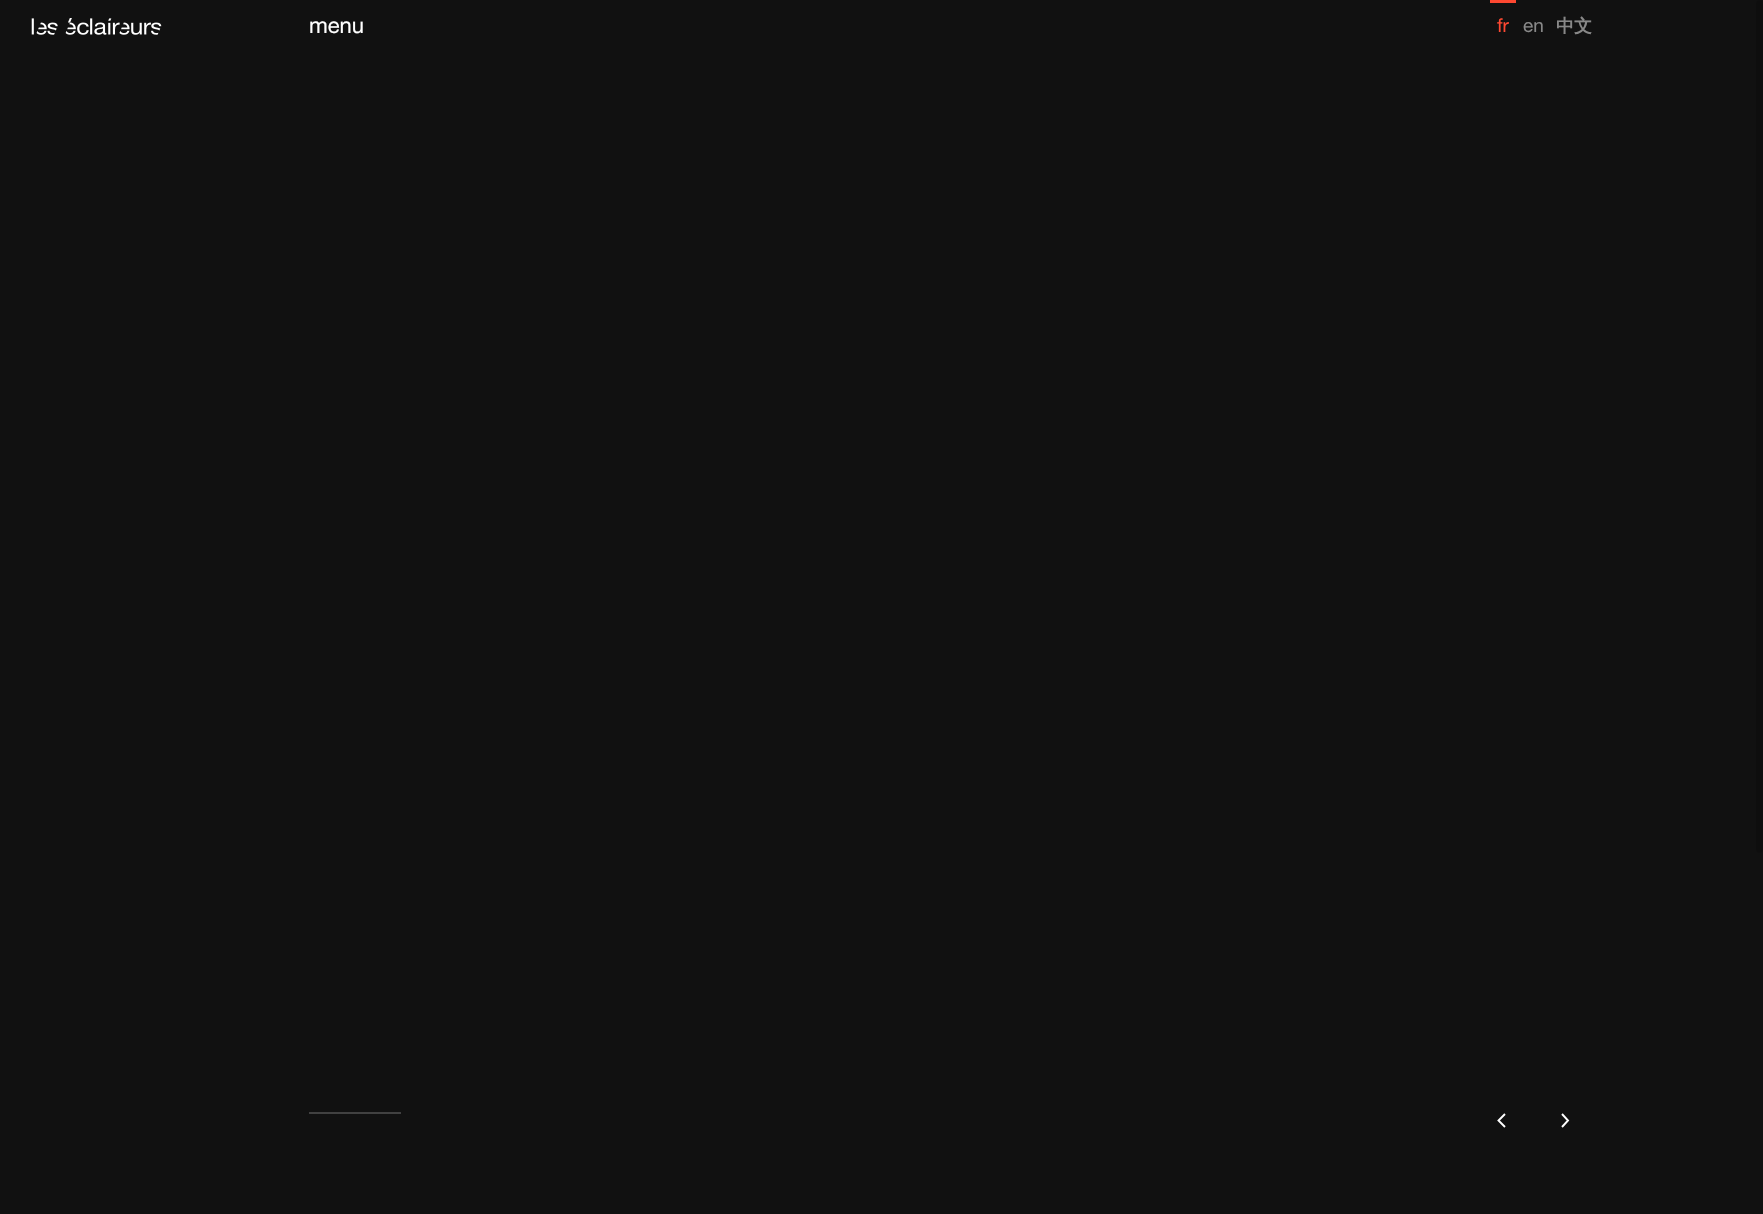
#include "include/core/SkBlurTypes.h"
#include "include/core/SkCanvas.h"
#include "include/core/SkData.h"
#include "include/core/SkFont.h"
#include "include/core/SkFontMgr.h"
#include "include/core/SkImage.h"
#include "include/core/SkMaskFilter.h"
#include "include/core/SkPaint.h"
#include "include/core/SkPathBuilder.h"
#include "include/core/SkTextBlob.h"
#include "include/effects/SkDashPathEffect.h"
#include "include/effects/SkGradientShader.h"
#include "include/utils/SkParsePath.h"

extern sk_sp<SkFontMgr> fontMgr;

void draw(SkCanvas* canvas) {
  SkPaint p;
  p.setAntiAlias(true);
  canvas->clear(SkColorSetRGB(17, 17, 17));
  p.setColor(SkColorSetRGB(14, 14, 14));
  canvas->drawRoundRect(SkRect::MakeLTRB(1756, 0, 1763, 853), 3.5f, 3.5f, p);
  p.setColor(SkColorSetRGB(65, 65, 65));
  canvas->drawRect(SkRect::MakeLTRB(309, 1112, 401, 1114), p);
  p.setStyle(SkPaint::kStroke_Style);
  p.setStrokeWidth(1.9f);
  p.setColor(SK_ColorWHITE);
  canvas->drawPath(SkPathBuilder().moveTo(1505, 1114).lineTo(1498.5f, 1120.5f).lineTo(1505, 1127).detach(), p);
  canvas->drawPath(SkPathBuilder().moveTo(1562, 1114).lineTo(1568, 1120.5f).lineTo(1562, 1127).detach(), p);
  canvas->drawImageRect(SkImages::DeferredFromEncodedData(SkData::MakeFromFileName("images/1.png")), SkRect::MakeLTRB(31, 18, 162, 35), SkSamplingOptions());
  p.setStyle(SkPaint::kFill_Style);
  p.setColor(SkColorSetRGB(254, 72, 49));
  canvas->drawRect(SkRect::MakeLTRB(1490, 0, 1516, 3), p);
  SkFont font1(fontMgr->matchFamilyStyle("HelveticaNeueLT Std", SkFontStyle::Normal()), 22);
  font1.setSubpixel(true);
  p.setColor(SK_ColorWHITE);
  canvas->drawString("menu", 309, 33, font1, p);
  SkFont font2(fontMgr->matchFamilyStyle("HelveticaNeueLT Std", SkFontStyle::Normal()), 19);
  font2.setSubpixel(true);
  p.setColor(SkColorSetRGB(254, 72, 49));
  canvas->drawString("fr", 1497, 32, font2, p);
  p.setColor(SkColorSetRGB(136, 136, 136));
  canvas->drawString("en", 1523, 32, font2, p);
  SkFont font3(fontMgr->matchFamilyStyle("WenQuanYi Zen Hei", SkFontStyle::Bold()), 18);
  font3.setSubpixel(true);
  canvas->drawString("中文", 1556, 32, font3, p);
}
